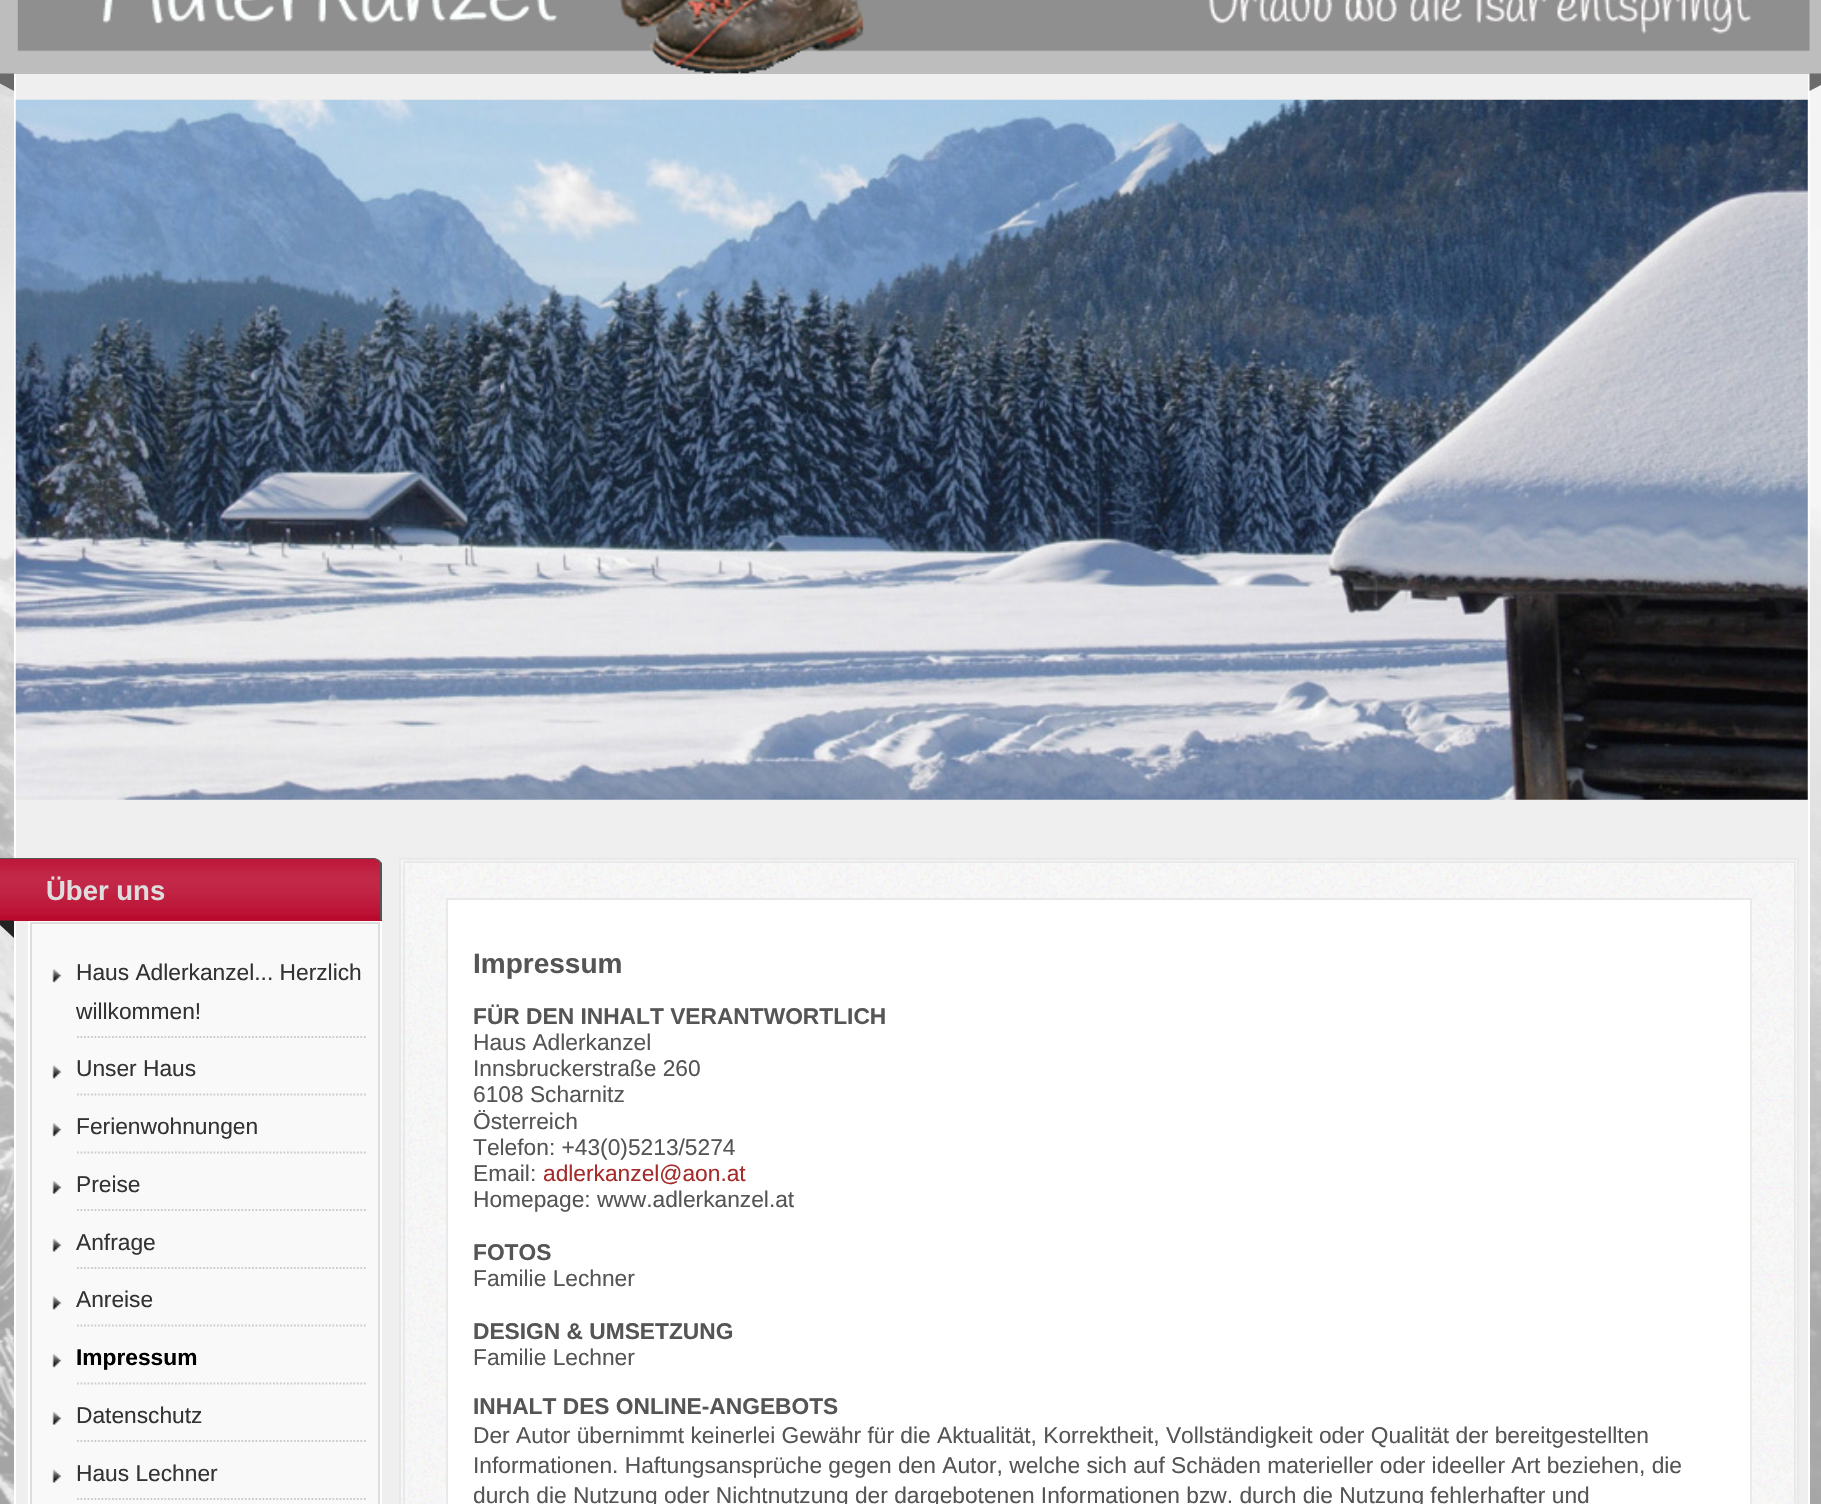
#include "include/core/SkBlurTypes.h"
#include "include/core/SkCanvas.h"
#include "include/core/SkData.h"
#include "include/core/SkFont.h"
#include "include/core/SkFontMgr.h"
#include "include/core/SkImage.h"
#include "include/core/SkMaskFilter.h"
#include "include/core/SkPaint.h"
#include "include/core/SkPathBuilder.h"
#include "include/core/SkTextBlob.h"
#include "include/effects/SkDashPathEffect.h"
#include "include/effects/SkGradientShader.h"
#include "include/utils/SkParsePath.h"

extern sk_sp<SkFontMgr> fontMgr;

void draw(SkCanvas* canvas) {
  SkPaint p;
  p.setAntiAlias(true);
  canvas->clear(SK_ColorWHITE);
  canvas->drawImageRect(SkImages::DeferredFromEncodedData(SkData::MakeFromFileName("images/1.png")), SkRect::MakeLTRB(0, 83, 1821, 1504), SkSamplingOptions());
  p.setColor(SkColorSetRGB(239, 239, 239));
  canvas->drawRect(SkRect::MakeLTRB(16, 74, 1808, 1504), p);
  p.setStyle(SkPaint::kStroke_Style);
  p.setStrokeWidth(2);
  p.setColor(SK_ColorWHITE);
  canvas->drawRect(SkRect::MakeLTRB(15, -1, 1809, 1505), p);
  p.setStyle(SkPaint::kFill_Style);
  p.setColor(SkColorSetRGB(190, 189, 189));
  canvas->drawRect(SkRect::MakeLTRB(0, 0, 1821, 74), p);
  canvas->drawImageRect(SkImages::DeferredFromEncodedData(SkData::MakeFromFileName("images/2.png")), SkRect::MakeLTRB(17, 0, 1810, 74), SkSamplingOptions());
  p.setColor(SkColorSetRGB(107, 107, 107));
  canvas->drawPath(SkPathBuilder().moveTo(-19, 73.5f).lineTo(14, 73.5f).lineTo(14, 91).close().detach(), p);
  canvas->drawPath(SkPathBuilder().moveTo(1809.5f, 73.5f).lineTo(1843, 73.5f).lineTo(1809.5f, 91).close().detach(), p);
  canvas->drawImageRect(SkImages::DeferredFromEncodedData(SkData::MakeFromFileName("images/3.png")), SkRect::MakeLTRB(15, 99, 1808, 800), SkSamplingOptions());
  p.setColor(SkColorSetRGB(186, 9, 45));
  canvas->drawPath(SkPathBuilder().moveTo(2, 858).lineTo(373, 858).cubicTo(378, 858, 382, 862, 382, 867).lineTo(382, 921).lineTo(-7, 921).lineTo(-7, 867).cubicTo(-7, 862, -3, 858, 2, 858).close().detach(), p);
  canvas->drawImageRect(SkImages::DeferredFromEncodedData(SkData::MakeFromFileName("images/4.png")), SkRect::MakeLTRB(0, 859, 380, 916), SkSamplingOptions());
  p.setColor(SkColorSetRGB(85, 85, 85));
  canvas->drawPath(SkPathBuilder().moveTo(2, 858).lineTo(373, 858).cubicTo(375, 858, 377, 859, 379, 860).lineTo(378, 861).cubicTo(377, 860, 375, 859, 373, 859).lineTo(2, 859).cubicTo(0, 859, -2, 860, -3, 861).lineTo(-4, 860).cubicTo(-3, 859, 0, 858, 2, 858).close().detach(), p);
  canvas->drawPath(SkPathBuilder().moveTo(379, 860).lineTo(382, 863).lineTo(382, 920).lineTo(380, 920).lineTo(380, 866).cubicTo(380, 864, 379, 862, 378, 861).close().detach(), p);
  p.setColor(SkColorSetRGB(34, 34, 34));
  canvas->drawPath(SkPathBuilder().moveTo(-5, 920.5f).lineTo(14, 920.5f).lineTo(14, 938).close().detach(), p);
  p.setStyle(SkPaint::kStroke_Style);
  p.setColor(SK_ColorWHITE);
  canvas->drawRect(SkRect::MakeLTRB(29, 922, 381, 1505), p);
  p.setStyle(SkPaint::kFill_Style);
  p.setColor(SkColorSetRGB(249, 249, 249));
  canvas->drawRect(SkRect::MakeLTRB(31, 923, 379, 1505), p);
  p.setStyle(SkPaint::kStroke_Style);
  p.setColor(SkColorSetRGB(221, 221, 221));
  canvas->drawRect(SkRect::MakeLTRB(31, 923, 379, 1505), p);
  canvas->drawImageRect(SkImages::DeferredFromEncodedData(SkData::MakeFromFileName("images/5.png")), SkRect::MakeLTRB(52, 969, 62, 983), SkSamplingOptions());
  p.setStrokeWidth(1.8f);
  p.setColor(SkColorSetRGB(204, 204, 204));
  p.setPathEffect(SkDashPathEffect::Make({{1.75f, 1.75f}}, 0));
  canvas->drawPath(SkPathBuilder().moveTo(77, 1037).lineTo(367.5f, 1037).detach(), p);
  p.setPathEffect(nullptr);
  canvas->drawImageRect(SkImages::DeferredFromEncodedData(SkData::MakeFromFileName("images/6.png")), SkRect::MakeLTRB(52, 1065, 62, 1079), SkSamplingOptions());
  p.setPathEffect(SkDashPathEffect::Make({{1.75f, 1.75f}}, 0));
  canvas->drawPath(SkPathBuilder().moveTo(77, 1094.5f).lineTo(367.5f, 1094.5f).detach(), p);
  p.setPathEffect(nullptr);
  canvas->drawImageRect(SkImages::DeferredFromEncodedData(SkData::MakeFromFileName("images/5.png")), SkRect::MakeLTRB(52, 1123, 62, 1137), SkSamplingOptions());
  p.setPathEffect(SkDashPathEffect::Make({{1.75f, 1.75f}}, 0));
  canvas->drawPath(SkPathBuilder().moveTo(77, 1152.5f).lineTo(367.5f, 1152.5f).detach(), p);
  p.setPathEffect(nullptr);
  canvas->drawImageRect(SkImages::DeferredFromEncodedData(SkData::MakeFromFileName("images/7.png")), SkRect::MakeLTRB(52, 1180, 62, 1194), SkSamplingOptions());
  p.setPathEffect(SkDashPathEffect::Make({{1.75f, 1.75f}}, 0));
  canvas->drawPath(SkPathBuilder().moveTo(77, 1210).lineTo(367.5f, 1210).detach(), p);
  p.setPathEffect(nullptr);
  canvas->drawImageRect(SkImages::DeferredFromEncodedData(SkData::MakeFromFileName("images/8.png")), SkRect::MakeLTRB(52, 1238, 62, 1252), SkSamplingOptions());
  p.setPathEffect(SkDashPathEffect::Make({{1.75f, 1.75f}}, 0));
  canvas->drawPath(SkPathBuilder().moveTo(77, 1268).lineTo(367.5f, 1268).detach(), p);
  p.setPathEffect(nullptr);
  canvas->drawImageRect(SkImages::DeferredFromEncodedData(SkData::MakeFromFileName("images/6.png")), SkRect::MakeLTRB(52, 1296, 62, 1310), SkSamplingOptions());
  p.setPathEffect(SkDashPathEffect::Make({{1.75f, 1.75f}}, 0));
  canvas->drawPath(SkPathBuilder().moveTo(77, 1325.5f).lineTo(367.5f, 1325.5f).detach(), p);
  p.setPathEffect(nullptr);
  canvas->drawImageRect(SkImages::DeferredFromEncodedData(SkData::MakeFromFileName("images/5.png")), SkRect::MakeLTRB(52, 1354, 62, 1368), SkSamplingOptions());
  p.setPathEffect(SkDashPathEffect::Make({{1.75f, 1.75f}}, 0));
  canvas->drawPath(SkPathBuilder().moveTo(77, 1383.5f).lineTo(367.5f, 1383.5f).detach(), p);
  p.setPathEffect(nullptr);
  canvas->drawImageRect(SkImages::DeferredFromEncodedData(SkData::MakeFromFileName("images/7.png")), SkRect::MakeLTRB(52, 1411, 62, 1425), SkSamplingOptions());
  p.setPathEffect(SkDashPathEffect::Make({{1.75f, 1.75f}}, 0));
  canvas->drawPath(SkPathBuilder().moveTo(77, 1441).lineTo(367.5f, 1441).detach(), p);
  p.setPathEffect(nullptr);
  canvas->drawImageRect(SkImages::DeferredFromEncodedData(SkData::MakeFromFileName("images/8.png")), SkRect::MakeLTRB(52, 1469, 62, 1483), SkSamplingOptions());
  p.setPathEffect(SkDashPathEffect::Make({{1.75f, 1.75f}}, 0));
  canvas->drawPath(SkPathBuilder().moveTo(77, 1499).lineTo(367.5f, 1499).detach(), p);
  p.setPathEffect(nullptr);
  p.setStyle(SkPaint::kFill_Style);
  p.setColor(SkColorSetRGB(249, 249, 249));
  canvas->drawRect(SkRect::MakeLTRB(401, 860, 1797, 1504), p);
  canvas->drawImageRect(SkImages::DeferredFromEncodedData(SkData::MakeFromFileName("images/9.png")), SkRect::MakeLTRB(399, 857, 1799, 1504), SkSamplingOptions());
  p.setStyle(SkPaint::kStroke_Style);
  p.setStrokeWidth(2);
  p.setColor(SkColorSetRGB(233, 233, 233));
  canvas->drawRect(SkRect::MakeLTRB(400, 859, 1798, 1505), p);
  canvas->drawRect(SkRect::MakeLTRB(404, 862, 1795, 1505), p);
  p.setStyle(SkPaint::kFill_Style);
  p.setColor(SK_ColorWHITE);
  canvas->drawRect(SkRect::MakeLTRB(447, 899, 1751, 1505), p);
  p.setStyle(SkPaint::kStroke_Style);
  p.setColor(SkColorSetRGB(233, 233, 233));
  canvas->drawRect(SkRect::MakeLTRB(447, 899, 1751, 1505), p);
  SkFont font1(fontMgr->matchFamilyStyle("Liberation Sans", SkFontStyle::Bold()), 27.5f);
  font1.setSubpixel(true);
  p.setStyle(SkPaint::kFill_Style);
  p.setColor(SkColorSetRGB(221, 221, 221));
  canvas->drawString("Über uns", 46, 900, font1, p);
  SkFont font2(fontMgr->matchFamilyStyle("Liberation Sans", SkFontStyle::Normal()), 22.75f);
  font2.setSubpixel(true);
  p.setColor(SkColorSetRGB(51, 51, 51));
  canvas->drawString("Haus Adlerkanzel... Herzlich", 76, 980, font2, p);
  canvas->drawString("willkommen!", 76, 1019, font2, p);
  canvas->drawString("Unser Haus", 76, 1076, font2, p);
  canvas->drawString("Ferienwohnungen", 76, 1134, font2, p);
  canvas->drawString("Preise", 76, 1192, font2, p);
  canvas->drawString("Anfrage", 76, 1250, font2, p);
  canvas->drawString("Anreise", 76, 1307, font2, p);
  SkFont font3(fontMgr->matchFamilyStyle("Liberation Sans", SkFontStyle::Bold()), 22.75f);
  font3.setSubpixel(true);
  p.setColor(SK_ColorBLACK);
  canvas->drawString("Impressum", 76, 1365, font3, p);
  p.setColor(SkColorSetRGB(51, 51, 51));
  canvas->drawString("Datenschutz", 76, 1423, font2, p);
  canvas->drawString("Haus Lechner", 76, 1481, font2, p);
  SkFont font4(fontMgr->matchFamilyStyle("Liberation Sans", SkFontStyle::Bold()), 28);
  font4.setSubpixel(true);
  p.setColor(SkColorSetRGB(85, 85, 85));
  canvas->drawString("Impressum", 473, 973, font4, p);
  canvas->drawString("FÜR DEN INHALT VERANTWORTLICH", 473, 1024, font3, p);
  canvas->drawString("Haus Adlerkanzel", 473, 1050, font2, p);
  canvas->drawString("Innsbruckerstraße 260", 473, 1076, font2, p);
  canvas->drawString("6108 Scharnitz", 473, 1102, font2, p);
  canvas->drawString("Österreich", 473, 1129, font2, p);
  canvas->drawString("Telefon: +43(0)5213/5274", 473, 1155, font2, p);
  canvas->drawString("Email:", 473, 1181, font2, p);
  p.setColor(SkColorSetRGB(165, 42, 42));
  canvas->drawString("adlerkanzel@aon.at", 543, 1181, font2, p);
  p.setColor(SkColorSetRGB(85, 85, 85));
  canvas->drawString("Homepage: www.adlerkanzel.at", 473, 1207, font2, p);
  canvas->drawString("FOTOS", 473, 1260, font3, p);
  canvas->drawString("Familie Lechner", 473, 1286, font2, p);
  canvas->drawString("DESIGN & UMSETZUNG", 473, 1339, font3, p);
  canvas->drawString("Familie Lechner", 473, 1365, font2, p);
  canvas->drawString("INHALT DES ONLINE-ANGEBOTS", 473, 1414, font3, p);
  canvas->drawString("Der Autor übernimmt keinerlei Gewähr für die Aktualität, Korrektheit, Vollständigkeit oder Qualität der bereitgestellten", 473, 1443, font2, p);
  canvas->drawString("Informationen. Haftungsansprüche gegen den Autor, welche sich auf Schäden materieller oder ideeller Art beziehen, die", 473, 1473, font2, p);
  canvas->drawString("durch die Nutzung oder Nichtnutzung der dargebotenen Informationen bzw. durch die Nutzung fehlerhafter und", 473, 1503, font2, p);
}
